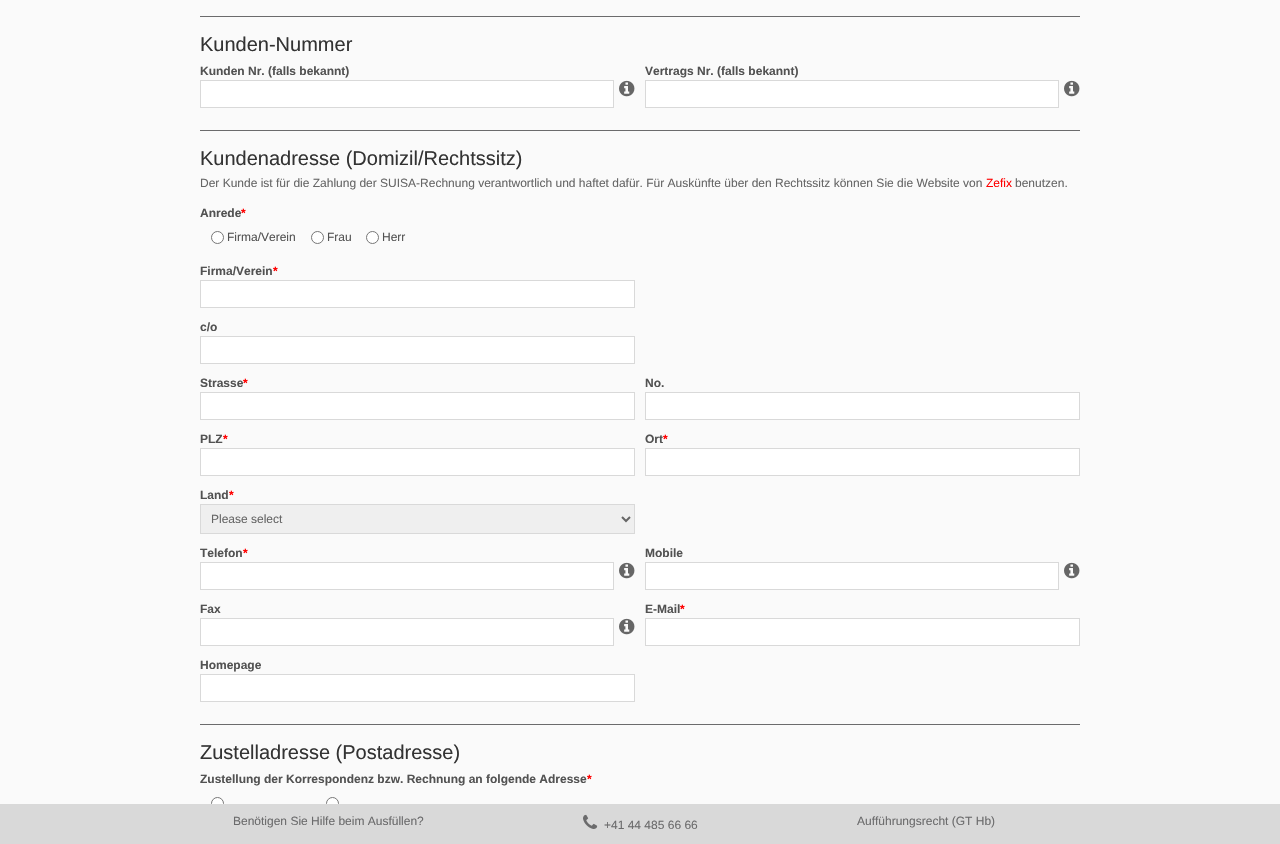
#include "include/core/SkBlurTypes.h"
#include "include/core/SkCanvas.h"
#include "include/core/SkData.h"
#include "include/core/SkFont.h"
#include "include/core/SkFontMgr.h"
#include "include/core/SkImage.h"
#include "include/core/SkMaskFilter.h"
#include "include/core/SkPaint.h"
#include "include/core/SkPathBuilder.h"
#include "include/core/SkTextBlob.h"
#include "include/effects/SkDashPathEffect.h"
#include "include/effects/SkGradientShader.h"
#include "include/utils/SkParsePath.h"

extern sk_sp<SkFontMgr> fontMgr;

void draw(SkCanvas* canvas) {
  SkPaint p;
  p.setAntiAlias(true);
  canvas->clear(SkColorSetRGB(250, 250, 250));
  p.setColor(SkColorSetRGB(107, 107, 108));
  canvas->drawRect(SkRect::MakeLTRB(200, 16, 1080, 17), p);
  p.setColor(SK_ColorWHITE);
  canvas->drawRect(SkRect::MakeLTRB(200.5f, 80.5f, 613.5f, 107.5f), p);
  p.setStyle(SkPaint::kStroke_Style);
  p.setStrokeWidth(1);
  p.setColor(SkColorSetRGB(217, 217, 217));
  canvas->drawRect(SkRect::MakeLTRB(200.5f, 80.5f, 613.5f, 107.5f), p);
  canvas->drawImageRect(SkImages::DeferredFromEncodedData(SkData::MakeFromFileName("images/1.png")), SkRect::MakeLTRB(619, 80, 635, 97), SkSamplingOptions());
  p.setStyle(SkPaint::kFill_Style);
  p.setColor(SK_ColorWHITE);
  canvas->drawRect(SkRect::MakeLTRB(645.5f, 80.5f, 1058.5f, 107.5f), p);
  p.setStyle(SkPaint::kStroke_Style);
  p.setColor(SkColorSetRGB(217, 217, 217));
  canvas->drawRect(SkRect::MakeLTRB(645.5f, 80.5f, 1058.5f, 107.5f), p);
  canvas->drawImageRect(SkImages::DeferredFromEncodedData(SkData::MakeFromFileName("images/1.png")), SkRect::MakeLTRB(1064, 80, 1080, 97), SkSamplingOptions());
  p.setStyle(SkPaint::kFill_Style);
  p.setColor(SkColorSetRGB(107, 107, 108));
  canvas->drawRect(SkRect::MakeLTRB(200, 130, 1080, 131), p);
  p.setColor(SK_ColorWHITE);
  canvas->drawCircle(217.5f, 237.5f, 6, p);
  p.setStyle(SkPaint::kStroke_Style);
  p.setColor(SkColorSetRGB(118, 118, 118));
  canvas->drawCircle(217.5f, 237.5f, 6, p);
  p.setStyle(SkPaint::kFill_Style);
  p.setColor(SK_ColorWHITE);
  canvas->drawCircle(317.5f, 237.5f, 6, p);
  p.setStyle(SkPaint::kStroke_Style);
  p.setColor(SkColorSetRGB(118, 118, 118));
  canvas->drawCircle(317.5f, 237.5f, 6, p);
  p.setStyle(SkPaint::kFill_Style);
  p.setColor(SK_ColorWHITE);
  canvas->drawCircle(372.5f, 237.5f, 6, p);
  p.setStyle(SkPaint::kStroke_Style);
  p.setColor(SkColorSetRGB(118, 118, 118));
  canvas->drawCircle(372.5f, 237.5f, 6, p);
  p.setStyle(SkPaint::kFill_Style);
  p.setColor(SK_ColorWHITE);
  canvas->drawRect(SkRect::MakeLTRB(200.5f, 280.5f, 634.5f, 307.5f), p);
  p.setStyle(SkPaint::kStroke_Style);
  p.setColor(SkColorSetRGB(217, 217, 217));
  canvas->drawRect(SkRect::MakeLTRB(200.5f, 280.5f, 634.5f, 307.5f), p);
  p.setStyle(SkPaint::kFill_Style);
  p.setColor(SK_ColorWHITE);
  canvas->drawRect(SkRect::MakeLTRB(200.5f, 336.5f, 634.5f, 363.5f), p);
  p.setStyle(SkPaint::kStroke_Style);
  p.setColor(SkColorSetRGB(217, 217, 217));
  canvas->drawRect(SkRect::MakeLTRB(200.5f, 336.5f, 634.5f, 363.5f), p);
  p.setStyle(SkPaint::kFill_Style);
  p.setColor(SK_ColorWHITE);
  canvas->drawRect(SkRect::MakeLTRB(200.5f, 392.5f, 634.5f, 419.5f), p);
  p.setStyle(SkPaint::kStroke_Style);
  p.setColor(SkColorSetRGB(217, 217, 217));
  canvas->drawRect(SkRect::MakeLTRB(200.5f, 392.5f, 634.5f, 419.5f), p);
  p.setStyle(SkPaint::kFill_Style);
  p.setColor(SK_ColorWHITE);
  canvas->drawRect(SkRect::MakeLTRB(645.5f, 392.5f, 1079.5f, 419.5f), p);
  p.setStyle(SkPaint::kStroke_Style);
  p.setColor(SkColorSetRGB(217, 217, 217));
  canvas->drawRect(SkRect::MakeLTRB(645.5f, 392.5f, 1079.5f, 419.5f), p);
  p.setStyle(SkPaint::kFill_Style);
  p.setColor(SK_ColorWHITE);
  canvas->drawRect(SkRect::MakeLTRB(200.5f, 448.5f, 634.5f, 475.5f), p);
  p.setStyle(SkPaint::kStroke_Style);
  p.setColor(SkColorSetRGB(217, 217, 217));
  canvas->drawRect(SkRect::MakeLTRB(200.5f, 448.5f, 634.5f, 475.5f), p);
  p.setStyle(SkPaint::kFill_Style);
  p.setColor(SK_ColorWHITE);
  canvas->drawRect(SkRect::MakeLTRB(645.5f, 448.5f, 1079.5f, 475.5f), p);
  p.setStyle(SkPaint::kStroke_Style);
  p.setColor(SkColorSetRGB(217, 217, 217));
  canvas->drawRect(SkRect::MakeLTRB(645.5f, 448.5f, 1079.5f, 475.5f), p);
  p.setStyle(SkPaint::kFill_Style);
  p.setColor(SkColorSetRGB(239, 239, 239));
  canvas->drawRect(SkRect::MakeLTRB(200.5f, 504.5f, 634.5f, 533.5f), p);
  p.setStyle(SkPaint::kStroke_Style);
  p.setColor(SkColorSetRGB(217, 217, 217));
  canvas->drawRect(SkRect::MakeLTRB(200.5f, 504.5f, 634.5f, 533.5f), p);
  p.setStrokeWidth(2);
  p.setColor(SkColorSetRGB(102, 102, 102));
  canvas->drawPath(SkPathBuilder().moveTo(622, 517).lineTo(626, 521).lineTo(630, 517).detach(), p);
  p.setStyle(SkPaint::kFill_Style);
  p.setColor(SK_ColorWHITE);
  canvas->drawRect(SkRect::MakeLTRB(200.5f, 562.5f, 613.5f, 589.5f), p);
  p.setStyle(SkPaint::kStroke_Style);
  p.setStrokeWidth(1);
  p.setColor(SkColorSetRGB(217, 217, 217));
  canvas->drawRect(SkRect::MakeLTRB(200.5f, 562.5f, 613.5f, 589.5f), p);
  canvas->drawImageRect(SkImages::DeferredFromEncodedData(SkData::MakeFromFileName("images/1.png")), SkRect::MakeLTRB(619, 562, 635, 579), SkSamplingOptions());
  p.setStyle(SkPaint::kFill_Style);
  p.setColor(SK_ColorWHITE);
  canvas->drawRect(SkRect::MakeLTRB(645.5f, 562.5f, 1058.5f, 589.5f), p);
  p.setStyle(SkPaint::kStroke_Style);
  p.setColor(SkColorSetRGB(217, 217, 217));
  canvas->drawRect(SkRect::MakeLTRB(645.5f, 562.5f, 1058.5f, 589.5f), p);
  canvas->drawImageRect(SkImages::DeferredFromEncodedData(SkData::MakeFromFileName("images/1.png")), SkRect::MakeLTRB(1064, 562, 1080, 579), SkSamplingOptions());
  p.setStyle(SkPaint::kFill_Style);
  p.setColor(SK_ColorWHITE);
  canvas->drawRect(SkRect::MakeLTRB(200.5f, 618.5f, 613.5f, 645.5f), p);
  p.setStyle(SkPaint::kStroke_Style);
  p.setColor(SkColorSetRGB(217, 217, 217));
  canvas->drawRect(SkRect::MakeLTRB(200.5f, 618.5f, 613.5f, 645.5f), p);
  canvas->drawImageRect(SkImages::DeferredFromEncodedData(SkData::MakeFromFileName("images/1.png")), SkRect::MakeLTRB(619, 618, 635, 635), SkSamplingOptions());
  p.setStyle(SkPaint::kFill_Style);
  p.setColor(SK_ColorWHITE);
  canvas->drawRect(SkRect::MakeLTRB(645.5f, 618.5f, 1079.5f, 645.5f), p);
  p.setStyle(SkPaint::kStroke_Style);
  p.setColor(SkColorSetRGB(217, 217, 217));
  canvas->drawRect(SkRect::MakeLTRB(645.5f, 618.5f, 1079.5f, 645.5f), p);
  p.setStyle(SkPaint::kFill_Style);
  p.setColor(SK_ColorWHITE);
  canvas->drawRect(SkRect::MakeLTRB(200.5f, 674.5f, 634.5f, 701.5f), p);
  p.setStyle(SkPaint::kStroke_Style);
  p.setColor(SkColorSetRGB(217, 217, 217));
  canvas->drawRect(SkRect::MakeLTRB(200.5f, 674.5f, 634.5f, 701.5f), p);
  p.setStyle(SkPaint::kFill_Style);
  p.setColor(SkColorSetRGB(107, 107, 108));
  canvas->drawRect(SkRect::MakeLTRB(200, 724, 1080, 725), p);
  p.setColor(SK_ColorWHITE);
  canvas->drawCircle(217.5f, 803.5f, 6, p);
  p.setStyle(SkPaint::kStroke_Style);
  p.setColor(SkColorSetRGB(118, 118, 118));
  canvas->drawCircle(217.5f, 803.5f, 6, p);
  p.setStyle(SkPaint::kFill_Style);
  p.setColor(SK_ColorWHITE);
  canvas->drawCircle(332.5f, 803.5f, 6, p);
  p.setStyle(SkPaint::kStroke_Style);
  p.setColor(SkColorSetRGB(118, 118, 118));
  canvas->drawCircle(332.5f, 803.5f, 6, p);
  p.setStyle(SkPaint::kFill_Style);
  p.setColor(SkColorSetRGB(217, 217, 217));
  canvas->drawRect(SkRect::MakeLTRB(0, 804, 1280, 844), p);
  canvas->drawImageRect(SkImages::DeferredFromEncodedData(SkData::MakeFromFileName("images/2.png")), SkRect::MakeLTRB(583, 814, 598, 829), SkSamplingOptions());
  SkFont font1(fontMgr->matchFamilyStyle("Liberation Sans", SkFontStyle::Normal()), 20);
  font1.setSubpixel(true);
  p.setColor(SkColorSetRGB(51, 51, 51));
  canvas->drawString("Kunden-Nummer", 200, 51, font1, p);
  SkFont font2(fontMgr->matchFamilyStyle("Liberation Sans", SkFontStyle::Bold()), 12);
  font2.setSubpixel(true);
  p.setColor(SkColorSetRGB(82, 82, 82));
  canvas->drawString("Kunden Nr. (falls bekannt)", 200, 75, font2, p);
  canvas->drawString("Vertrags Nr. (falls bekannt)", 645, 75, font2, p);
  p.setColor(SkColorSetRGB(51, 51, 51));
  canvas->drawString("Kundenadresse (Domizil/Rechtssitz)", 200, 165, font1, p);
  SkFont font3(fontMgr->matchFamilyStyle("Liberation Sans", SkFontStyle::Normal()), 12);
  font3.setSubpixel(true);
  p.setColor(SkColorSetRGB(102, 102, 102));
  canvas->drawString("Der Kunde ist für die Zahlung der SUISA-Rechnung verantwortlich und haftet dafür. Für Auskünfte über den Rechtssitz können Sie die Website von", 200, 187, font3, p);
  p.setColor(SkColorSetRGB(255, 0, 0));
  canvas->drawString("Zefix", 986, 187, font3, p);
  p.setColor(SkColorSetRGB(102, 102, 102));
  canvas->drawString("benutzen.", 1015, 187, font3, p);
  p.setColor(SkColorSetRGB(82, 82, 82));
  canvas->drawString("Anrede", 200, 217, font2, p);
  p.setColor(SkColorSetRGB(255, 0, 0));
  canvas->drawString("*", 241, 217, font2, p);
  p.setColor(SkColorSetRGB(82, 82, 82));
  canvas->drawString("Firma/Verein", 227, 241, font3, p);
  canvas->drawString("Frau", 327, 241, font3, p);
  canvas->drawString("Herr", 382, 241, font3, p);
  canvas->drawString("Firma/Verein", 200, 275, font2, p);
  p.setColor(SkColorSetRGB(255, 0, 0));
  canvas->drawString("*", 273, 275, font2, p);
  p.setColor(SkColorSetRGB(82, 82, 82));
  canvas->drawString("c/o", 200, 331, font2, p);
  canvas->drawString("Strasse", 200, 387, font2, p);
  p.setColor(SkColorSetRGB(255, 0, 0));
  canvas->drawString("*", 243, 387, font2, p);
  p.setColor(SkColorSetRGB(82, 82, 82));
  canvas->drawString("No.", 645, 387, font2, p);
  canvas->drawString("PLZ", 200, 443, font2, p);
  p.setColor(SkColorSetRGB(255, 0, 0));
  canvas->drawString("*", 223, 443, font2, p);
  p.setColor(SkColorSetRGB(82, 82, 82));
  canvas->drawString("Ort", 645, 443, font2, p);
  p.setColor(SkColorSetRGB(255, 0, 0));
  canvas->drawString("*", 663, 443, font2, p);
  p.setColor(SkColorSetRGB(82, 82, 82));
  canvas->drawString("Land", 200, 499, font2, p);
  p.setColor(SkColorSetRGB(255, 0, 0));
  canvas->drawString("*", 229, 499, font2, p);
  p.setColor(SkColorSetRGB(102, 102, 102));
  canvas->drawString("Please select", 211, 523, font3, p);
  p.setColor(SkColorSetRGB(82, 82, 82));
  canvas->drawString("Telefon", 200, 557, font2, p);
  p.setColor(SkColorSetRGB(255, 0, 0));
  canvas->drawString("*", 243, 557, font2, p);
  p.setColor(SkColorSetRGB(82, 82, 82));
  canvas->drawString("Mobile", 645, 557, font2, p);
  canvas->drawString("Fax", 200, 613, font2, p);
  canvas->drawString("E-Mail", 645, 613, font2, p);
  p.setColor(SkColorSetRGB(255, 0, 0));
  canvas->drawString("*", 680, 613, font2, p);
  p.setColor(SkColorSetRGB(82, 82, 82));
  canvas->drawString("Homepage", 200, 669, font2, p);
  p.setColor(SkColorSetRGB(51, 51, 51));
  canvas->drawString("Zustelladresse (Postadresse)", 200, 759, font1, p);
  p.setColor(SkColorSetRGB(82, 82, 82));
  canvas->drawString("Zustellung der Korrespondenz bzw. Rechnung an folgende Adresse", 200, 783, font2, p);
  p.setColor(SkColorSetRGB(255, 0, 0));
  canvas->drawString("*", 587, 783, font2, p);
  p.setColor(SkColorSetRGB(107, 107, 108));
  canvas->drawString("Benötigen Sie Hilfe beim Ausfüllen?", 233, 825, font3, p);
  canvas->drawString("+41 44 485 66 66", 604, 829, font3, p);
  canvas->drawString("Aufführungsrecht (GT Hb)", 857, 825, font3, p);
}
